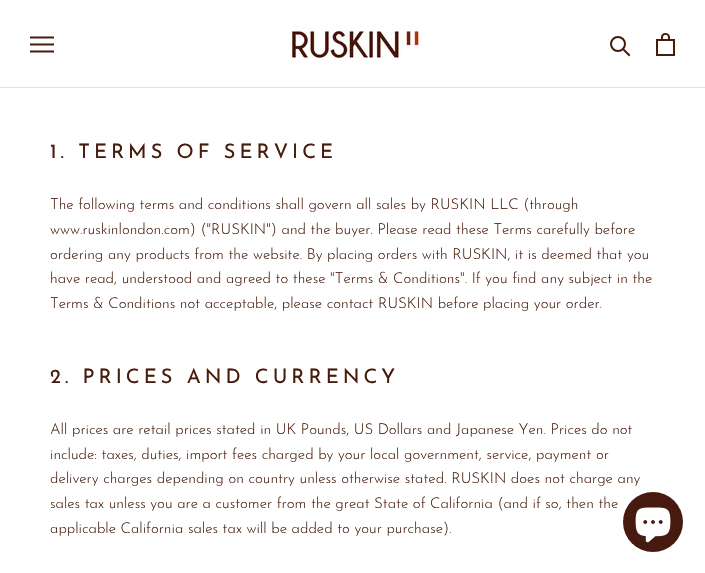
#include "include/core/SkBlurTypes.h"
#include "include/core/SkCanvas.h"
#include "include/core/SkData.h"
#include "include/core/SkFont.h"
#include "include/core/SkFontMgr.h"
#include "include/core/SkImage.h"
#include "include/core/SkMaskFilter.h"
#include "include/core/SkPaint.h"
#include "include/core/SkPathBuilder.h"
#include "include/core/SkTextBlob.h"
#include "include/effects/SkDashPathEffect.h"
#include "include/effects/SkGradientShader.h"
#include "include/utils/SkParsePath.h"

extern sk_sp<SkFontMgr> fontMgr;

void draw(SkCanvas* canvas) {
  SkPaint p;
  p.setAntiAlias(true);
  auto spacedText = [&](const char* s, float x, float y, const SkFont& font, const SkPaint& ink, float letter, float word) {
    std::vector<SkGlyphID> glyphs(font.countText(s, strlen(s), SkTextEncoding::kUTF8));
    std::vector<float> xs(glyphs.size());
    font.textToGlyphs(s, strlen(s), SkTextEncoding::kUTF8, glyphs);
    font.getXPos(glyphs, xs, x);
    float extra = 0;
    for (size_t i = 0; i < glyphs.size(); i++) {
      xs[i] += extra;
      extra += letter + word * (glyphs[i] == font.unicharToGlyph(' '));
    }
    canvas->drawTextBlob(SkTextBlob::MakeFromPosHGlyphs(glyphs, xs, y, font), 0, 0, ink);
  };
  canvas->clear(SK_ColorWHITE);
  p.setColor(SkColorSetRGB(227, 221, 219));
  canvas->drawRect(SkRect::MakeLTRB(0, 87, 705, 88), p);
  canvas->drawImageRect(SkImages::DeferredFromEncodedData(SkData::MakeFromFileName("images/1.png")), SkRect::MakeLTRB(30, 36, 54, 53), SkSamplingOptions());
  canvas->drawImageRect(SkImages::DeferredFromEncodedData(SkData::MakeFromFileName("images/2.png")), SkRect::MakeLTRB(290, 26, 422, 59), SkSamplingOptions());
  p.setStyle(SkPaint::kStroke_Style);
  p.setStrokeWidth(2);
  p.setStrokeCap(SkPaint::kSquare_Cap);
  p.setColor(SkColorSetRGB(70, 28, 12));
  canvas->drawPath(SkPathBuilder().moveTo(629, 55).lineTo(623.5f, 49.5f).detach(), p);
  p.setStrokeCap(SkPaint::kButt_Cap);
  canvas->drawCircle(618, 44, 7, p);
  canvas->drawImageRect(SkImages::DeferredFromEncodedData(SkData::MakeFromFileName("images/3.png")), SkRect::MakeLTRB(656, 33, 675, 56), SkSamplingOptions());
  p.setStyle(SkPaint::kFill_Style);
  p.setColor(SkColorSetRGB(70, 26, 14));
  canvas->drawCircle(653, 522, 30, p);
  canvas->drawImageRect(SkImages::DeferredFromEncodedData(SkData::MakeFromFileName("images/4.png")), SkRect::MakeLTRB(635, 507, 671, 543), SkSamplingOptions());
  SkFont font1(fontMgr->matchFamilyStyle("Josefin Sans", SkFontStyle::Normal()), 20);
  font1.setSubpixel(true);
  p.setColor(SkColorSetRGB(70, 28, 12));
  spacedText("1. TERMS OF SERVICE", 50, 158, font1, p, 4, 0);
  SkFont font2(fontMgr->matchFamilyStyle("Josefin Sans", SkFontStyle(300, SkFontStyle::kNormal_Width, SkFontStyle::kUpright_Slant)), 15);
  font2.setSubpixel(true);
  canvas->drawString("The following terms and conditions shall govern all sales by RUSKIN LLC (through", 50, 209, font2, p);
  canvas->drawString("www.ruskinlondon.com) (\"RUSKIN\") and the buyer. Please read these Terms carefully before", 50, 234, font2, p);
  canvas->drawString("ordering any products from the website. By placing orders with RUSKIN, it is deemed that you", 50, 259, font2, p);
  canvas->drawString("have read, understood and agreed to these \"Terms & Conditions\". If you find any subject in the", 50, 283, font2, p);
  canvas->drawString("Terms & Conditions not acceptable, please contact RUSKIN before placing your order.", 50, 308, font2, p);
  spacedText("2. PRICES AND CURRENCY", 50, 383, font1, p, 4, 0);
  canvas->drawString("All prices are retail prices stated in UK Pounds, US Dollars and Japanese Yen. Prices do not", 50, 434, font2, p);
  canvas->drawString("include: taxes, duties, import fees charged by your local government, service, payment or", 50, 459, font2, p);
  canvas->drawString("delivery charges depending on country unless otherwise stated. RUSKIN does not charge any", 50, 483, font2, p);
  canvas->drawString("sales tax unless you are a customer from the great State of California (and if so, then the", 50, 508, font2, p);
  canvas->drawString("applicable California sales tax will be added to your purchase).", 50, 533, font2, p);
}
